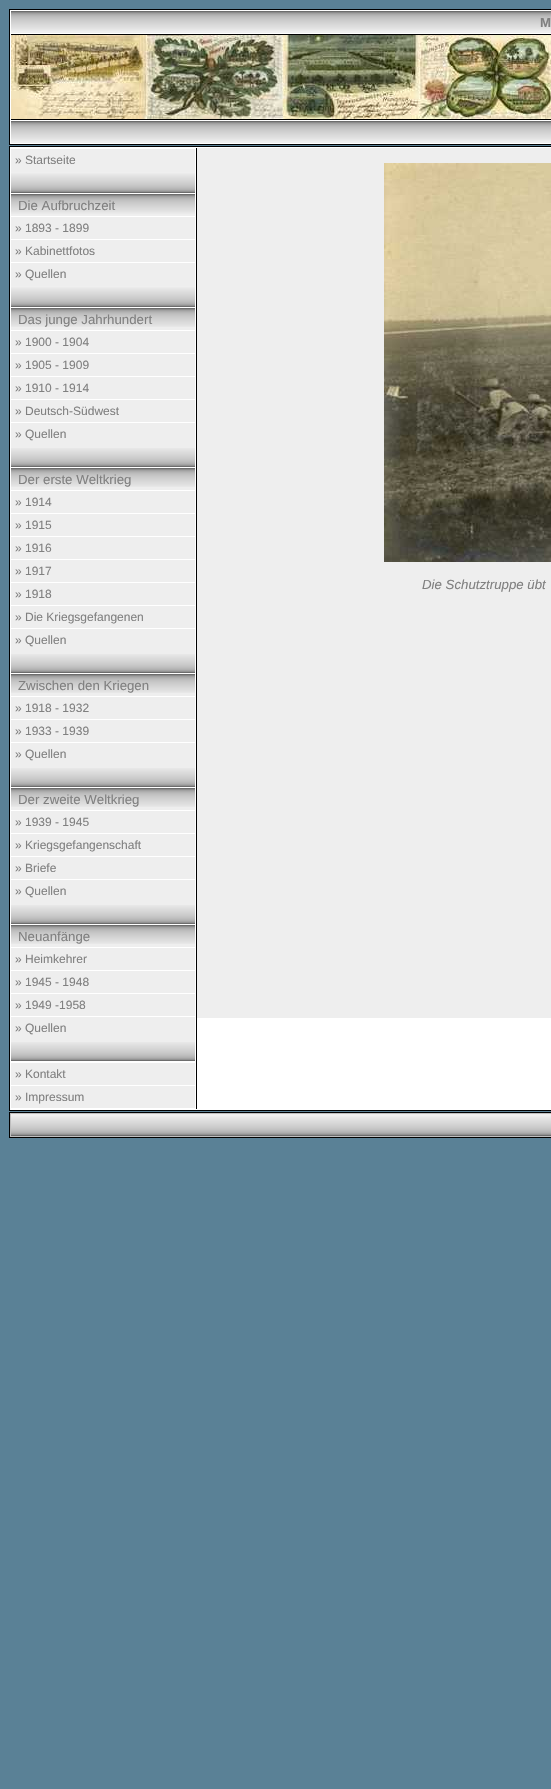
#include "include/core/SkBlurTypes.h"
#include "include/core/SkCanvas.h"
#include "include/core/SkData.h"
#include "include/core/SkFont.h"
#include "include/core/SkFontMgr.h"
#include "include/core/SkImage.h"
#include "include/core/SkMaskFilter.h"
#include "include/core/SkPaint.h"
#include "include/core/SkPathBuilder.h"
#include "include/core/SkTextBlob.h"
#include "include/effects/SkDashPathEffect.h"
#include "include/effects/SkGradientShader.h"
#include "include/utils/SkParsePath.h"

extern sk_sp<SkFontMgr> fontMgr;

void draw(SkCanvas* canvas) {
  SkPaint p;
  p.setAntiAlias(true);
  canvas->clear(SkColorSetRGB(90, 129, 150));
  p.setStyle(SkPaint::kStroke_Style);
  p.setStrokeWidth(1);
  p.setColor(SK_ColorBLACK);
  canvas->drawRect(SkRect::MakeLTRB(9.5f, 9.5f, 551.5f, 144.5f), p);
  p.setStyle(SkPaint::kFill_Style);
  p.setColor(SK_ColorWHITE);
  canvas->drawRect(SkRect::MakeLTRB(10, 10, 551, 144), p);
  canvas->drawImageRect(SkImages::DeferredFromEncodedData(SkData::MakeFromFileName("images/1.png")), SkRect::MakeLTRB(11, 11, 551, 33), SkSamplingOptions());
  p.setColor(SK_ColorBLACK);
  canvas->drawRect(SkRect::MakeLTRB(11, 34, 551, 35), p);
  canvas->drawRect(SkRect::MakeLTRB(11, 119, 551, 120), p);
  canvas->drawImageRect(SkImages::DeferredFromEncodedData(SkData::MakeFromFileName("images/2.png")), SkRect::MakeLTRB(11, 35, 551, 119), SkSamplingOptions());
  canvas->drawImageRect(SkImages::DeferredFromEncodedData(SkData::MakeFromFileName("images/1.png")), SkRect::MakeLTRB(11, 121, 551, 143), SkSamplingOptions());
  p.setStyle(SkPaint::kStroke_Style);
  canvas->drawRect(SkRect::MakeLTRB(9.5f, 146.5f, 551.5f, 1110.5f), p);
  p.setStyle(SkPaint::kFill_Style);
  p.setColor(SK_ColorWHITE);
  canvas->drawRect(SkRect::MakeLTRB(10, 147, 551, 1110), p);
  p.setColor(SkColorSetRGB(238, 238, 238));
  canvas->drawRect(SkRect::MakeLTRB(11, 149, 195, 171), p);
  canvas->drawImageRect(SkImages::DeferredFromEncodedData(SkData::MakeFromFileName("images/3.png")), SkRect::MakeLTRB(11, 171, 195, 193), SkSamplingOptions());
  canvas->drawImageRect(SkImages::DeferredFromEncodedData(SkData::MakeFromFileName("images/4.png")), SkRect::MakeLTRB(11, 194, 195, 216), SkSamplingOptions());
  canvas->drawRect(SkRect::MakeLTRB(11, 217, 195, 239), p);
  canvas->drawRect(SkRect::MakeLTRB(11, 240, 195, 262), p);
  canvas->drawRect(SkRect::MakeLTRB(11, 263, 195, 285), p);
  canvas->drawImageRect(SkImages::DeferredFromEncodedData(SkData::MakeFromFileName("images/3.png")), SkRect::MakeLTRB(11, 285, 195, 307), SkSamplingOptions());
  canvas->drawRect(SkRect::MakeLTRB(11, 327, 195, 330), p);
  canvas->drawImageRect(SkImages::DeferredFromEncodedData(SkData::MakeFromFileName("images/5.png")), SkRect::MakeLTRB(11, 308, 195, 327), SkSamplingOptions());
  canvas->drawRect(SkRect::MakeLTRB(11, 331, 195, 353), p);
  canvas->drawRect(SkRect::MakeLTRB(11, 354, 195, 376), p);
  canvas->drawRect(SkRect::MakeLTRB(11, 377, 195, 399), p);
  canvas->drawRect(SkRect::MakeLTRB(11, 400, 195, 422), p);
  canvas->drawRect(SkRect::MakeLTRB(11, 423, 195, 448), p);
  canvas->drawImageRect(SkImages::DeferredFromEncodedData(SkData::MakeFromFileName("images/6.png")), SkRect::MakeLTRB(11, 448, 195, 467), SkSamplingOptions());
  canvas->drawRect(SkRect::MakeLTRB(11, 487, 195, 490), p);
  canvas->drawImageRect(SkImages::DeferredFromEncodedData(SkData::MakeFromFileName("images/5.png")), SkRect::MakeLTRB(11, 468, 195, 487), SkSamplingOptions());
  canvas->drawRect(SkRect::MakeLTRB(11, 491, 195, 513), p);
  canvas->drawRect(SkRect::MakeLTRB(11, 514, 195, 536), p);
  canvas->drawRect(SkRect::MakeLTRB(11, 537, 195, 559), p);
  canvas->drawRect(SkRect::MakeLTRB(11, 560, 195, 582), p);
  canvas->drawRect(SkRect::MakeLTRB(11, 583, 195, 605), p);
  canvas->drawRect(SkRect::MakeLTRB(11, 606, 195, 628), p);
  canvas->drawRect(SkRect::MakeLTRB(11, 629, 195, 654), p);
  canvas->drawImageRect(SkImages::DeferredFromEncodedData(SkData::MakeFromFileName("images/6.png")), SkRect::MakeLTRB(11, 654, 195, 673), SkSamplingOptions());
  canvas->drawRect(SkRect::MakeLTRB(11, 693, 195, 696), p);
  canvas->drawImageRect(SkImages::DeferredFromEncodedData(SkData::MakeFromFileName("images/5.png")), SkRect::MakeLTRB(11, 674, 195, 693), SkSamplingOptions());
  canvas->drawRect(SkRect::MakeLTRB(11, 697, 195, 719), p);
  canvas->drawRect(SkRect::MakeLTRB(11, 720, 195, 742), p);
  canvas->drawRect(SkRect::MakeLTRB(11, 743, 195, 768), p);
  canvas->drawImageRect(SkImages::DeferredFromEncodedData(SkData::MakeFromFileName("images/6.png")), SkRect::MakeLTRB(11, 768, 195, 787), SkSamplingOptions());
  canvas->drawRect(SkRect::MakeLTRB(11, 807, 195, 810), p);
  canvas->drawImageRect(SkImages::DeferredFromEncodedData(SkData::MakeFromFileName("images/5.png")), SkRect::MakeLTRB(11, 788, 195, 807), SkSamplingOptions());
  canvas->drawRect(SkRect::MakeLTRB(11, 811, 195, 833), p);
  canvas->drawRect(SkRect::MakeLTRB(11, 834, 195, 856), p);
  canvas->drawRect(SkRect::MakeLTRB(11, 857, 195, 879), p);
  canvas->drawRect(SkRect::MakeLTRB(11, 880, 195, 905), p);
  canvas->drawImageRect(SkImages::DeferredFromEncodedData(SkData::MakeFromFileName("images/6.png")), SkRect::MakeLTRB(11, 905, 195, 924), SkSamplingOptions());
  canvas->drawRect(SkRect::MakeLTRB(11, 944, 195, 947), p);
  canvas->drawImageRect(SkImages::DeferredFromEncodedData(SkData::MakeFromFileName("images/5.png")), SkRect::MakeLTRB(11, 925, 195, 944), SkSamplingOptions());
  canvas->drawRect(SkRect::MakeLTRB(11, 948, 195, 970), p);
  canvas->drawRect(SkRect::MakeLTRB(11, 971, 195, 993), p);
  canvas->drawRect(SkRect::MakeLTRB(11, 994, 195, 1016), p);
  canvas->drawRect(SkRect::MakeLTRB(11, 1017, 195, 1042), p);
  canvas->drawImageRect(SkImages::DeferredFromEncodedData(SkData::MakeFromFileName("images/6.png")), SkRect::MakeLTRB(11, 1042, 195, 1061), SkSamplingOptions());
  canvas->drawRect(SkRect::MakeLTRB(11, 1063, 195, 1085), p);
  canvas->drawRect(SkRect::MakeLTRB(11, 1086, 195, 1108), p);
  p.setColor(SK_ColorBLACK);
  canvas->drawRect(SkRect::MakeLTRB(196, 148, 197, 1109), p);
  p.setColor(SkColorSetRGB(238, 238, 238));
  canvas->drawRect(SkRect::MakeLTRB(197, 148, 551, 1018), p);
  canvas->drawImageRect(SkImages::DeferredFromEncodedData(SkData::MakeFromFileName("images/7.png")), SkRect::MakeLTRB(384, 163, 551, 562), SkSamplingOptions());
  p.setStyle(SkPaint::kStroke_Style);
  p.setColor(SK_ColorBLACK);
  canvas->drawRect(SkRect::MakeLTRB(9.5f, 1112.5f, 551.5f, 1137.5f), p);
  p.setStyle(SkPaint::kFill_Style);
  p.setColor(SkColorSetRGB(191, 191, 191));
  canvas->drawRect(SkRect::MakeLTRB(10, 1113, 551, 1137), p);
  canvas->drawImageRect(SkImages::DeferredFromEncodedData(SkData::MakeFromFileName("images/8.png")), SkRect::MakeLTRB(11, 1114, 551, 1136), SkSamplingOptions());
  SkFont font1(fontMgr->matchFamilyStyle("Liberation Sans", SkFontStyle::Bold()), 13.25f);
  font1.setSubpixel(true);
  p.setColor(SkColorSetRGB(128, 128, 128));
  canvas->drawString("M", 540, 27, font1, p);
  SkFont font2(fontMgr->matchFamilyStyle("Liberation Sans", SkFontStyle::Normal()), 12);
  font2.setSubpixel(true);
  canvas->drawString("» Startseite", 15, 164, font2, p);
  SkFont font3(fontMgr->matchFamilyStyle("Liberation Sans", SkFontStyle::Normal()), 13.25f);
  font3.setSubpixel(true);
  canvas->drawString("Die Aufbruchzeit", 18, 210, font3, p);
  canvas->drawString("» 1893 - 1899", 15, 232, font2, p);
  canvas->drawString("» Kabinettfotos", 15, 255, font2, p);
  canvas->drawString("» Quellen", 15, 278, font2, p);
  canvas->drawString("Das junge Jahrhundert", 18, 324, font3, p);
  canvas->drawString("» 1900 - 1904", 15, 346, font2, p);
  canvas->drawString("» 1905 - 1909", 15, 369, font2, p);
  canvas->drawString("» 1910 - 1914", 15, 392, font2, p);
  canvas->drawString("» Deutsch-Südwest", 15, 415, font2, p);
  canvas->drawString("» Quellen", 15, 438, font2, p);
  canvas->drawString("Der erste Weltkrieg", 18, 484, font3, p);
  canvas->drawString("» 1914", 15, 506, font2, p);
  canvas->drawString("» 1915", 15, 529, font2, p);
  canvas->drawString("» 1916", 15, 552, font2, p);
  canvas->drawString("» 1917", 15, 575, font2, p);
  canvas->drawString("» 1918", 15, 598, font2, p);
  canvas->drawString("» Die Kriegsgefangenen", 15, 621, font2, p);
  canvas->drawString("» Quellen", 15, 644, font2, p);
  canvas->drawString("Zwischen den Kriegen", 18, 690, font3, p);
  canvas->drawString("» 1918 - 1932", 15, 712, font2, p);
  canvas->drawString("» 1933 - 1939", 15, 735, font2, p);
  canvas->drawString("» Quellen", 15, 758, font2, p);
  canvas->drawString("Der zweite Weltkrieg", 18, 804, font3, p);
  canvas->drawString("» 1939 - 1945", 15, 826, font2, p);
  canvas->drawString("» Kriegsgefangenschaft", 15, 849, font2, p);
  canvas->drawString("» Briefe", 15, 872, font2, p);
  canvas->drawString("» Quellen", 15, 895, font2, p);
  canvas->drawString("Neuanfänge", 18, 941, font3, p);
  canvas->drawString("» Heimkehrer", 15, 963, font2, p);
  canvas->drawString("» 1945 - 1948", 15, 986, font2, p);
  canvas->drawString("» 1949 -1958", 15, 1009, font2, p);
  canvas->drawString("» Quellen", 15, 1032, font2, p);
  canvas->drawString("» Kontakt", 15, 1078, font2, p);
  canvas->drawString("» Impressum", 15, 1101, font2, p);
  SkFont font4(fontMgr->matchFamilyStyle("Liberation Sans", SkFontStyle::Italic()), 13.25f);
  font4.setSubpixel(true);
  canvas->drawString("Die Schutztruppe übt", 422, 589, font4, p);
}
